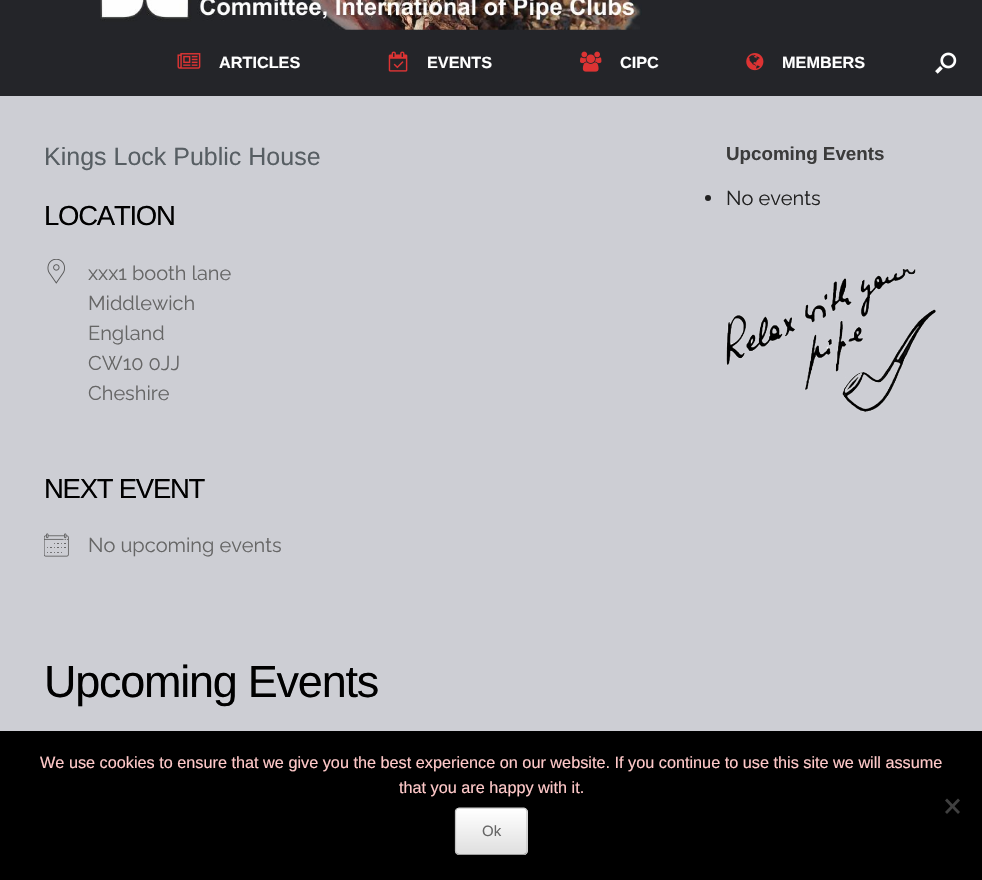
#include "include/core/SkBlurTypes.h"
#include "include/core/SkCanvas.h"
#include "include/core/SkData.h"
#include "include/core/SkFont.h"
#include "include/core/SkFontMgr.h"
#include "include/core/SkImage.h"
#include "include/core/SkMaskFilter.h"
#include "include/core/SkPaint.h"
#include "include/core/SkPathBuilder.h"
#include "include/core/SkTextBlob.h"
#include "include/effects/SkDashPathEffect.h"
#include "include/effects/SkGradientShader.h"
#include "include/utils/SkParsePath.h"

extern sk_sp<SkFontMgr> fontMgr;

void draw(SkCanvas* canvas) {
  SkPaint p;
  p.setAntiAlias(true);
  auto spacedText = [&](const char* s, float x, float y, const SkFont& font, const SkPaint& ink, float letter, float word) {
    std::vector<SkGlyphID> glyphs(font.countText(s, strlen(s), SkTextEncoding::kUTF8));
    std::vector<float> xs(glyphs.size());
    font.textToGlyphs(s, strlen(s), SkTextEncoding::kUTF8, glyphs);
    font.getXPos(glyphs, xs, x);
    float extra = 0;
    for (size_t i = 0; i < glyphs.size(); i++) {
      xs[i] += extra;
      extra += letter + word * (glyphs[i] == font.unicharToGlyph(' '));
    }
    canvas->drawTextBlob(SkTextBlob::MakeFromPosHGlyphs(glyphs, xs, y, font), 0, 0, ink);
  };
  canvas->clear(SkColorSetRGB(36, 37, 41));
  canvas->drawImageRect(SkImages::DeferredFromEncodedData(SkData::MakeFromFileName("images/1.png")), SkRect::MakeLTRB(100, 0, 642, 30), SkSamplingOptions());
  canvas->drawImageRect(SkImages::DeferredFromEncodedData(SkData::MakeFromFileName("images/2.png")), SkRect::MakeLTRB(177, 53, 201, 69), SkSamplingOptions());
  canvas->drawImageRect(SkImages::DeferredFromEncodedData(SkData::MakeFromFileName("images/3.png")), SkRect::MakeLTRB(388, 51, 408, 72), SkSamplingOptions());
  canvas->drawImageRect(SkImages::DeferredFromEncodedData(SkData::MakeFromFileName("images/4.png")), SkRect::MakeLTRB(580, 51, 602, 72), SkSamplingOptions());
  canvas->drawImageRect(SkImages::DeferredFromEncodedData(SkData::MakeFromFileName("images/5.png")), SkRect::MakeLTRB(746, 53, 764, 71), SkSamplingOptions());
  canvas->drawImageRect(SkImages::DeferredFromEncodedData(SkData::MakeFromFileName("images/6.png")), SkRect::MakeLTRB(935, 52, 957, 74), SkSamplingOptions());
  p.setColor(SkColorSetRGB(205, 206, 212));
  canvas->drawRect(SkRect::MakeLTRB(0, 96, 982, 731), p);
  canvas->drawImageRect(SkImages::DeferredFromEncodedData(SkData::MakeFromFileName("images/7.png")), SkRect::MakeLTRB(47, 259, 65, 284), SkSamplingOptions());
  canvas->drawImageRect(SkImages::DeferredFromEncodedData(SkData::MakeFromFileName("images/8.png")), SkRect::MakeLTRB(44, 533, 69, 557), SkSamplingOptions());
  p.setColor(SkColorSetRGB(33, 33, 33));
  canvas->drawCircle(708, 198, 3, p);
  canvas->drawImageRect(SkImages::DeferredFromEncodedData(SkData::MakeFromFileName("images/9.png")), SkRect::MakeLTRB(726, 268, 936, 412), SkSamplingOptions());
  p.setColor(SK_ColorBLACK);
  canvas->drawRect(SkRect::MakeLTRB(0, 731, 982, 880), p);
  p.setColor(SkColorSetRGB(64, 64, 64));
  canvas->drawPath(SkPathBuilder().moveTo(958, 798.5f).lineTo(960, 800.5f).lineTo(947, 814).lineTo(945, 812).close().detach(), p);
  canvas->drawPath(SkPathBuilder().moveTo(945, 800.5f).lineTo(947, 798.5f).lineTo(960, 812).lineTo(958, 814).close().detach(), p);
  canvas->save();
  canvas->clipPath(SkPathBuilder().moveTo(459, 808).lineTo(524, 808).cubicTo(526, 808, 528, 810, 528, 812).lineTo(528, 851).cubicTo(528, 853, 526, 855, 524, 855).lineTo(459, 855).cubicTo(457, 855, 455, 853, 455, 851).lineTo(455, 812).cubicTo(455, 810, 457, 808, 459, 808).close().detach(), true);
  {
    const SkColor colors[] = {SkColorSetRGB(223, 223, 223), SK_ColorWHITE};
    const float stops[] = {0, 1};
    const SkPoint ends[] = {{456, 809}, {456, 764}};
    p.setShader(SkGradientShader::MakeLinear(ends, colors, stops, 2, SkTileMode::kClamp));
    p.setAlpha(255);
  }
  canvas->drawRect(SkRect::MakeLTRB(455, 808, 528, 809), p);
  {
    const SkColor colors[] = {SkColorSetRGB(223, 223, 223), SK_ColorWHITE};
    const float stops[] = {0, 1};
    const SkPoint ends[] = {{456, 854}, {456, 809}};
    p.setShader(SkGradientShader::MakeLinear(ends, colors, stops, 2, SkTileMode::kClamp));
    p.setAlpha(255);
  }
  canvas->drawRect(SkRect::MakeLTRB(455, 809, 528, 854), p);
  {
    const SkColor colors[] = {SkColorSetRGB(223, 223, 223), SK_ColorWHITE};
    const float stops[] = {0, 1};
    const SkPoint ends[] = {{456, 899}, {456, 854}};
    p.setShader(SkGradientShader::MakeLinear(ends, colors, stops, 2, SkTileMode::kClamp));
    p.setAlpha(255);
  }
  canvas->drawRect(SkRect::MakeLTRB(455, 854, 528, 855), p);
  canvas->restore();
  p.setStyle(SkPaint::kStroke_Style);
  p.setStrokeWidth(1.2f);
  p.setShader(nullptr);
  p.setColor(SkColorSetRGB(210, 210, 210));
  canvas->drawPath(SkPathBuilder().moveTo(456.5f, 809).lineTo(459, 808).lineTo(524, 808).lineTo(526, 809).detach(), p);
  p.setColor(SkColorSetRGB(195, 195, 195));
  canvas->drawPath(SkPathBuilder().moveTo(526, 809).lineTo(527, 811).lineTo(527, 851).lineTo(526, 853.5f).detach(), p);
  p.setColor(SkColorSetRGB(159, 159, 159));
  canvas->drawPath(SkPathBuilder().moveTo(526, 853.5f).lineTo(524, 854.5f).lineTo(459, 854.5f).lineTo(456.5f, 853.5f).detach(), p);
  p.setColor(SkColorSetRGB(195, 195, 195));
  canvas->drawPath(SkPathBuilder().moveTo(456.5f, 853.5f).lineTo(455.5f, 851).lineTo(455.5f, 811).lineTo(456.5f, 809).detach(), p);
  SkFont font1(fontMgr->matchFamilyStyle("Liberation Sans", SkFontStyle::Bold()), 16.25f);
  font1.setSubpixel(true);
  p.setStyle(SkPaint::kFill_Style);
  p.setColor(SK_ColorWHITE);
  canvas->drawString("ARTICLES", 219, 68, font1, p);
  canvas->drawString("EVENTS", 427, 68, font1, p);
  canvas->drawString("CIPC", 620, 68, font1, p);
  canvas->drawString("MEMBERS", 782, 68, font1, p);
  SkFont font2(fontMgr->matchFamilyStyle("Liberation Sans", SkFontStyle::Normal()), 25);
  font2.setSubpixel(true);
  p.setColor(SkColorSetRGB(87, 94, 99));
  canvas->drawString("Kings Lock Public House", 44, 165, font2, p);
  SkFont font3(fontMgr->matchFamilyStyle("Liberation Sans", SkFontStyle::Normal()), 27.5f);
  font3.setSubpixel(true);
  p.setColor(SK_ColorBLACK);
  spacedText("LOCATION", 44, 225, font3, p, -1.25f, 0);
  SkFont font4(fontMgr->matchFamilyStyle("Raleway", SkFontStyle::Normal()), 20);
  font4.setSubpixel(true);
  p.setColor(SkColorSetRGB(102, 102, 102));
  canvas->drawString("xxx1 booth lane", 88, 280, font4, p);
  canvas->drawString("Middlewich", 88, 310, font4, p);
  canvas->drawString("England", 88, 340, font4, p);
  canvas->drawString("CW10 0JJ", 88, 370, font4, p);
  canvas->drawString("Cheshire", 88, 400, font4, p);
  p.setColor(SK_ColorBLACK);
  spacedText("NEXT EVENT", 44, 498, font3, p, -1.25f, 0);
  p.setColor(SkColorSetRGB(102, 102, 102));
  canvas->drawString("No upcoming events", 88, 552, font4, p);
  SkFont font5(fontMgr->matchFamilyStyle("Liberation Sans", SkFontStyle::Normal()), 45);
  font5.setSubpixel(true);
  p.setColor(SK_ColorBLACK);
  spacedText("Upcoming Events", 44, 697, font5, p, -1.25f, 0);
  SkFont font6(fontMgr->matchFamilyStyle("Liberation Sans", SkFontStyle::Bold()), 18.75f);
  font6.setSubpixel(true);
  p.setColor(SkColorSetRGB(59, 59, 59));
  canvas->drawString("Upcoming Events", 726, 160, font6, p);
  p.setColor(SkColorSetRGB(33, 33, 33));
  canvas->drawString("No events", 726, 205, font4, p);
  SkFont font7(fontMgr->matchFamilyStyle("Liberation Sans", SkFontStyle::Normal()), 16.25f);
  font7.setSubpixel(true);
  p.setColor(SkColorSetRGB(255, 201, 201));
  canvas->drawString("We use cookies to ensure that we give you the best experience on our website. If you continue to use this site we will assume", 40, 768, font7, p);
  canvas->drawString("that you are happy with it.", 399, 793, font7, p);
  SkFont font8(fontMgr->matchFamilyStyle("Liberation Sans", SkFontStyle::Normal()), 15);
  font8.setSubpixel(true);
  p.setColor(SkColorSetRGB(102, 102, 102));
  canvas->drawString("Ok", 482, 836, font8, p);
}
